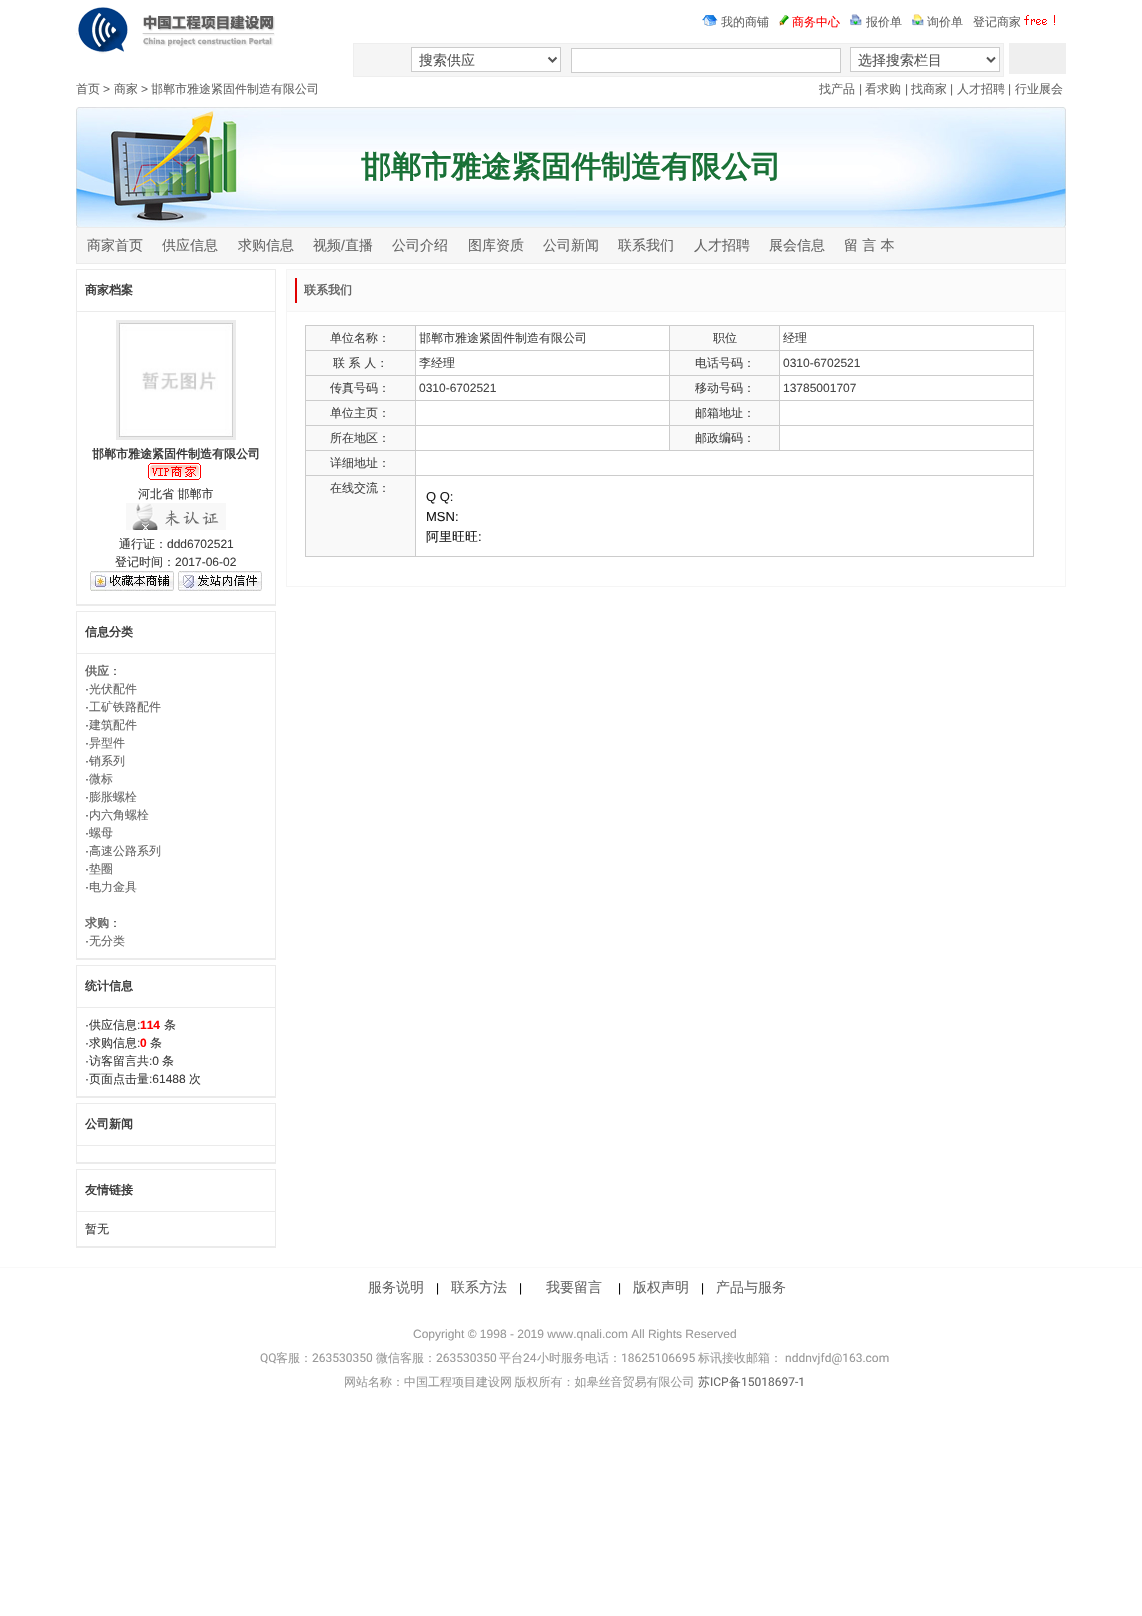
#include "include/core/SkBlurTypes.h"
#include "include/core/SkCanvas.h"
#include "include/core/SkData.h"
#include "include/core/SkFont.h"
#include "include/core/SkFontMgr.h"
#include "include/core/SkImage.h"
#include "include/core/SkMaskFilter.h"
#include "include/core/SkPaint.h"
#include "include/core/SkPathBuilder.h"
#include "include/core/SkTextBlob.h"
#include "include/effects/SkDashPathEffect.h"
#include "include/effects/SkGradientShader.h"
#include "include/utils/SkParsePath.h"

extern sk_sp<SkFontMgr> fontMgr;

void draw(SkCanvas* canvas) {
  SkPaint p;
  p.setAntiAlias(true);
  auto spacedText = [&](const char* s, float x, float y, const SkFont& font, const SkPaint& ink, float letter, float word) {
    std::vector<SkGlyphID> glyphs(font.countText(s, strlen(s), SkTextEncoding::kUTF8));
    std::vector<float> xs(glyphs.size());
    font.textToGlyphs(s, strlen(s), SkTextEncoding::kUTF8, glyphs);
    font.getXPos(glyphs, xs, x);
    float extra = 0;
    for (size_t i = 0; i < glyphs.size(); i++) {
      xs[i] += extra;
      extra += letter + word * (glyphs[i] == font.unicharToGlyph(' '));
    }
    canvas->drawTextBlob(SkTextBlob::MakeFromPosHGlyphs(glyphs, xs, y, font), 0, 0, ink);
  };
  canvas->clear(SK_ColorWHITE);
  canvas->drawImageRect(SkImages::DeferredFromEncodedData(SkData::MakeFromFileName("images/1.png")), SkRect::MakeLTRB(76, 7, 275, 54), SkSamplingOptions());
  canvas->drawImageRect(SkImages::DeferredFromEncodedData(SkData::MakeFromFileName("images/2.png")), SkRect::MakeLTRB(702, 15, 718, 26), SkSamplingOptions());
  canvas->drawImageRect(SkImages::DeferredFromEncodedData(SkData::MakeFromFileName("images/3.png")), SkRect::MakeLTRB(779, 15, 789, 26), SkSamplingOptions());
  canvas->drawImageRect(SkImages::DeferredFromEncodedData(SkData::MakeFromFileName("images/4.png")), SkRect::MakeLTRB(850, 14, 862, 26), SkSamplingOptions());
  canvas->drawImageRect(SkImages::DeferredFromEncodedData(SkData::MakeFromFileName("images/5.png")), SkRect::MakeLTRB(912, 14, 924, 26), SkSamplingOptions());
  canvas->drawImageRect(SkImages::DeferredFromEncodedData(SkData::MakeFromFileName("images/6.png")), SkRect::MakeLTRB(1024, 15, 1055, 25), SkSamplingOptions());
  p.setColor(SkColorSetRGB(245, 245, 245));
  canvas->drawRect(SkRect::MakeLTRB(353.5f, 43.5f, 1003.5f, 76.5f), p);
  p.setStyle(SkPaint::kStroke_Style);
  p.setStrokeWidth(1);
  p.setColor(SkColorSetRGB(238, 238, 238));
  canvas->drawRect(SkRect::MakeLTRB(353.5f, 43.5f, 1003.5f, 76.5f), p);
  p.setStyle(SkPaint::kFill_Style);
  p.setColor(SK_ColorWHITE);
  canvas->drawRect(SkRect::MakeLTRB(411.5f, 47.5f, 560.5f, 71.5f), p);
  p.setStyle(SkPaint::kStroke_Style);
  p.setColor(SkColorSetRGB(204, 204, 204));
  canvas->drawRect(SkRect::MakeLTRB(411.5f, 47.5f, 560.5f, 71.5f), p);
  p.setStrokeWidth(2);
  p.setColor(SkColorSetRGB(85, 85, 85));
  canvas->drawPath(SkPathBuilder().moveTo(548.5f, 57.5f).lineTo(552.5f, 61.5f).lineTo(556.5f, 57.5f).detach(), p);
  p.setStyle(SkPaint::kFill_Style);
  p.setColor(SK_ColorWHITE);
  canvas->drawRect(SkRect::MakeLTRB(571.5f, 48.5f, 840.5f, 72.5f), p);
  p.setStyle(SkPaint::kStroke_Style);
  p.setStrokeWidth(1);
  p.setColor(SkColorSetRGB(204, 204, 204));
  canvas->drawRect(SkRect::MakeLTRB(571.5f, 48.5f, 840.5f, 72.5f), p);
  p.setStyle(SkPaint::kFill_Style);
  p.setColor(SK_ColorWHITE);
  canvas->drawRect(SkRect::MakeLTRB(850.5f, 47.5f, 999.5f, 71.5f), p);
  p.setStyle(SkPaint::kStroke_Style);
  p.setColor(SkColorSetRGB(204, 204, 204));
  canvas->drawRect(SkRect::MakeLTRB(850.5f, 47.5f, 999.5f, 71.5f), p);
  p.setStrokeWidth(2);
  p.setColor(SkColorSetRGB(85, 85, 85));
  canvas->drawPath(SkPathBuilder().moveTo(987, 57.5f).lineTo(991, 61.5f).lineTo(995, 57.5f).detach(), p);
  p.setStyle(SkPaint::kFill_Style);
  p.setColor(SkColorSetRGB(239, 239, 239));
  canvas->drawRect(SkRect::MakeLTRB(1009, 43, 1066, 74), p);
  canvas->drawImageRect(SkImages::DeferredFromEncodedData(SkData::MakeFromFileName("images/7.png")), SkRect::MakeLTRB(76, 107, 1066, 227), SkSamplingOptions());
  p.setColor(SkColorSetRGB(246, 246, 246));
  canvas->drawRect(SkRect::MakeLTRB(76.5f, 227.5f, 1065.5f, 263.5f), p);
  p.setStyle(SkPaint::kStroke_Style);
  p.setStrokeWidth(1);
  p.setColor(SkColorSetRGB(235, 235, 235));
  canvas->drawRect(SkRect::MakeLTRB(76.5f, 227.5f, 1065.5f, 263.5f), p);
  canvas->drawRect(SkRect::MakeLTRB(76.5f, 269.5f, 275.5f, 605.5f), p);
  p.setStyle(SkPaint::kFill_Style);
  canvas->drawRect(SkRect::MakeLTRB(77, 311, 275, 312), p);
  canvas->drawRect(SkRect::MakeLTRB(77, 604, 275, 605), p);
  p.setStyle(SkPaint::kStroke_Style);
  p.setStrokeWidth(3);
  canvas->drawRect(SkRect::MakeLTRB(117.5f, 321.5f, 234.5f, 438.5f), p);
  canvas->drawImageRect(SkImages::DeferredFromEncodedData(SkData::MakeFromFileName("images/8.png")), SkRect::MakeLTRB(119, 323, 233, 437), SkSamplingOptions());
  canvas->drawImageRect(SkImages::DeferredFromEncodedData(SkData::MakeFromFileName("images/9.png")), SkRect::MakeLTRB(148, 463, 201, 480), SkSamplingOptions());
  canvas->drawImageRect(SkImages::DeferredFromEncodedData(SkData::MakeFromFileName("images/10.png")), SkRect::MakeLTRB(126, 503, 226, 530), SkSamplingOptions());
  canvas->drawImageRect(SkImages::DeferredFromEncodedData(SkData::MakeFromFileName("images/11.png")), SkRect::MakeLTRB(90, 571, 174, 591), SkSamplingOptions());
  canvas->drawImageRect(SkImages::DeferredFromEncodedData(SkData::MakeFromFileName("images/12.png")), SkRect::MakeLTRB(178, 571, 262, 591), SkSamplingOptions());
  p.setStrokeWidth(1);
  canvas->drawRect(SkRect::MakeLTRB(76.5f, 611.5f, 275.5f, 959.5f), p);
  p.setStyle(SkPaint::kFill_Style);
  canvas->drawRect(SkRect::MakeLTRB(77, 653, 275, 654), p);
  canvas->drawRect(SkRect::MakeLTRB(77, 958, 275, 959), p);
  p.setStyle(SkPaint::kStroke_Style);
  canvas->drawRect(SkRect::MakeLTRB(76.5f, 965.5f, 275.5f, 1097.5f), p);
  p.setStyle(SkPaint::kFill_Style);
  canvas->drawRect(SkRect::MakeLTRB(77, 1007, 275, 1008), p);
  canvas->drawRect(SkRect::MakeLTRB(77, 1096, 275, 1097), p);
  p.setStyle(SkPaint::kStroke_Style);
  canvas->drawRect(SkRect::MakeLTRB(76.5f, 1103.5f, 275.5f, 1163.5f), p);
  p.setStyle(SkPaint::kFill_Style);
  canvas->drawRect(SkRect::MakeLTRB(77, 1145, 275, 1146), p);
  canvas->drawRect(SkRect::MakeLTRB(77, 1162, 275, 1163), p);
  p.setStyle(SkPaint::kStroke_Style);
  canvas->drawRect(SkRect::MakeLTRB(76.5f, 1169.5f, 275.5f, 1247.5f), p);
  p.setStyle(SkPaint::kFill_Style);
  canvas->drawRect(SkRect::MakeLTRB(77, 1211, 275, 1212), p);
  canvas->drawRect(SkRect::MakeLTRB(77, 1246, 275, 1247), p);
  p.setStyle(SkPaint::kStroke_Style);
  p.setColor(SkColorSetRGB(245, 245, 245));
  canvas->drawRect(SkRect::MakeLTRB(286.5f, 269.5f, 1065.5f, 586.5f), p);
  p.setStyle(SkPaint::kFill_Style);
  p.setColor(SkColorSetRGB(251, 251, 251));
  canvas->drawRect(SkRect::MakeLTRB(287, 270, 1065, 311), p);
  p.setColor(SkColorSetRGB(245, 245, 245));
  canvas->drawRect(SkRect::MakeLTRB(287, 311, 1065, 312), p);
  p.setColor(SkColorSetRGB(225, 0, 0));
  canvas->drawRect(SkRect::MakeLTRB(295, 278, 297, 303), p);
  p.setColor(SkColorSetRGB(204, 204, 204));
  canvas->drawRect(SkRect::MakeLTRB(305, 325, 1034, 557), p);
  p.setColor(SkColorSetRGB(249, 249, 249));
  canvas->drawRect(SkRect::MakeLTRB(306, 326, 415, 350), p);
  p.setColor(SK_ColorWHITE);
  canvas->drawRect(SkRect::MakeLTRB(416, 326, 669, 350), p);
  p.setColor(SkColorSetRGB(249, 249, 249));
  canvas->drawRect(SkRect::MakeLTRB(670, 326, 779, 350), p);
  p.setColor(SK_ColorWHITE);
  canvas->drawRect(SkRect::MakeLTRB(780, 326, 1033, 350), p);
  p.setColor(SkColorSetRGB(249, 249, 249));
  canvas->drawRect(SkRect::MakeLTRB(306, 351, 415, 375), p);
  p.setColor(SK_ColorWHITE);
  canvas->drawRect(SkRect::MakeLTRB(416, 351, 669, 375), p);
  p.setColor(SkColorSetRGB(249, 249, 249));
  canvas->drawRect(SkRect::MakeLTRB(670, 351, 779, 375), p);
  p.setColor(SK_ColorWHITE);
  canvas->drawRect(SkRect::MakeLTRB(780, 351, 1033, 375), p);
  p.setColor(SkColorSetRGB(249, 249, 249));
  canvas->drawRect(SkRect::MakeLTRB(306, 376, 415, 400), p);
  p.setColor(SK_ColorWHITE);
  canvas->drawRect(SkRect::MakeLTRB(416, 376, 669, 400), p);
  p.setColor(SkColorSetRGB(249, 249, 249));
  canvas->drawRect(SkRect::MakeLTRB(670, 376, 779, 400), p);
  p.setColor(SK_ColorWHITE);
  canvas->drawRect(SkRect::MakeLTRB(780, 376, 1033, 400), p);
  p.setColor(SkColorSetRGB(249, 249, 249));
  canvas->drawRect(SkRect::MakeLTRB(306, 401, 415, 425), p);
  p.setColor(SK_ColorWHITE);
  canvas->drawRect(SkRect::MakeLTRB(416, 401, 669, 425), p);
  p.setColor(SkColorSetRGB(249, 249, 249));
  canvas->drawRect(SkRect::MakeLTRB(670, 401, 779, 425), p);
  p.setColor(SK_ColorWHITE);
  canvas->drawRect(SkRect::MakeLTRB(780, 401, 1033, 425), p);
  p.setColor(SkColorSetRGB(249, 249, 249));
  canvas->drawRect(SkRect::MakeLTRB(306, 426, 415, 450), p);
  p.setColor(SK_ColorWHITE);
  canvas->drawRect(SkRect::MakeLTRB(416, 426, 669, 450), p);
  p.setColor(SkColorSetRGB(249, 249, 249));
  canvas->drawRect(SkRect::MakeLTRB(670, 426, 779, 450), p);
  p.setColor(SK_ColorWHITE);
  canvas->drawRect(SkRect::MakeLTRB(780, 426, 1033, 450), p);
  p.setColor(SkColorSetRGB(249, 249, 249));
  canvas->drawRect(SkRect::MakeLTRB(306, 451, 415, 475), p);
  p.setColor(SK_ColorWHITE);
  canvas->drawRect(SkRect::MakeLTRB(416, 451, 1033, 475), p);
  p.setColor(SkColorSetRGB(249, 249, 249));
  canvas->drawRect(SkRect::MakeLTRB(306, 476, 415, 556), p);
  p.setColor(SK_ColorWHITE);
  canvas->drawRect(SkRect::MakeLTRB(416, 476, 1033, 556), p);
  p.setColor(SkColorSetRGB(249, 249, 249));
  canvas->drawRect(SkRect::MakeLTRB(0, 1267, 1142, 1268), p);
  SkFont font1(fontMgr->matchFamilyStyle("WenQuanYi Zen Hei", SkFontStyle(500, SkFontStyle::kNormal_Width, SkFontStyle::kUpright_Slant)), 12);
  font1.setSubpixel(true);
  p.setColor(SkColorSetRGB(102, 102, 102));
  canvas->drawString("我的商铺", 721, 26, font1, p);
  p.setColor(SkColorSetRGB(255, 0, 0));
  canvas->drawString("商务中心", 792, 26, font1, p);
  p.setColor(SkColorSetRGB(102, 102, 102));
  canvas->drawString("报价单", 866, 26, font1, p);
  canvas->drawString("询价单", 927, 26, font1, p);
  canvas->drawString("登记商家", 973, 26, font1, p);
  SkFont font2(fontMgr->matchFamilyStyle("WenQuanYi Zen Hei", SkFontStyle(500, SkFontStyle::kNormal_Width, SkFontStyle::kUpright_Slant)), 14);
  font2.setSubpixel(true);
  p.setColor(SkColorSetRGB(85, 85, 85));
  canvas->drawString("搜索供应", 419, 65, font2, p);
  canvas->drawString("选择搜索栏目", 858, 65, font2, p);
  p.setColor(SkColorSetRGB(102, 102, 102));
  canvas->drawString("首页", 76, 93, font1, p);
  SkFont font3(fontMgr->matchFamilyStyle("Liberation Sans", SkFontStyle::Normal()), 12);
  font3.setSubpixel(true);
  canvas->drawString(">", 103, 93, font3, p);
  canvas->drawString("商家", 114, 93, font1, p);
  canvas->drawString(">", 141, 93, font3, p);
  canvas->drawString("邯郸市雅途紧固件制造有限公司", 151, 93, font1, p);
  canvas->drawString("找产品", 819, 93, font1, p);
  canvas->drawString("|", 859, 93, font3, p);
  canvas->drawString("看求购", 865, 93, font1, p);
  canvas->drawString("|", 905, 93, font3, p);
  canvas->drawString("找商家", 911, 93, font1, p);
  canvas->drawString("|", 950, 93, font3, p);
  canvas->drawString("人才招聘", 957, 93, font1, p);
  canvas->drawString("|", 1008, 93, font3, p);
  canvas->drawString("行业展会", 1015, 93, font1, p);
  SkFont font4(fontMgr->matchFamilyStyle("WenQuanYi Zen Hei", SkFontStyle::Bold()), 30);
  font4.setSubpixel(true);
  p.setColor(SkColorSetRGB(25, 113, 55));
  canvas->drawString("邯郸市雅途紧固件制造有限公司", 361, 177, font4, p);
  p.setColor(SkColorSetRGB(102, 102, 102));
  canvas->drawString("商家首页", 87, 250, font2, p);
  canvas->drawString("供应信息", 162, 250, font2, p);
  canvas->drawString("求购信息", 238, 250, font2, p);
  canvas->drawString("视频", 313, 250, font2, p);
  SkFont font5(fontMgr->matchFamilyStyle("Liberation Sans", SkFontStyle::Normal()), 14);
  font5.setSubpixel(true);
  canvas->drawString("/", 341, 250, font5, p);
  canvas->drawString("直播", 345, 250, font2, p);
  canvas->drawString("公司介绍", 392, 250, font2, p);
  canvas->drawString("图库资质", 468, 250, font2, p);
  canvas->drawString("公司新闻", 543, 250, font2, p);
  canvas->drawString("联系我们", 618, 250, font2, p);
  canvas->drawString("人才招聘", 694, 250, font2, p);
  canvas->drawString("展会信息", 769, 250, font2, p);
  canvas->drawString("留 言 本", 844, 250, font2, p);
  SkFont font6(fontMgr->matchFamilyStyle("WenQuanYi Zen Hei", SkFontStyle::Bold()), 12);
  font6.setSubpixel(true);
  p.setColor(SkColorSetRGB(60, 60, 60));
  canvas->drawString("商家档案", 85, 294, font6, p);
  canvas->drawString("邯郸市雅途紧固件制造有限公司", 92, 458, font6, p);
  canvas->drawString("河北省 邯郸市", 138, 498, font1, p);
  canvas->drawString("通行证：", 119, 548, font1, p);
  canvas->drawString("ddd6702521", 167, 548, font3, p);
  canvas->drawString("登记时间：", 115, 566, font1, p);
  canvas->drawString("2017-06-02", 175, 566, font3, p);
  canvas->drawString("信息分类", 85, 636, font6, p);
  p.setColor(SkColorSetRGB(102, 102, 102));
  canvas->drawString("供应", 85, 675, font6, p);
  p.setColor(SkColorSetRGB(60, 60, 60));
  canvas->drawString("：", 109, 675, font1, p);
  canvas->drawString("·", 85, 693, font3, p);
  p.setColor(SkColorSetRGB(102, 102, 102));
  canvas->drawString("光伏配件", 89, 693, font1, p);
  p.setColor(SkColorSetRGB(60, 60, 60));
  canvas->drawString("·", 85, 711, font3, p);
  p.setColor(SkColorSetRGB(102, 102, 102));
  canvas->drawString("工矿铁路配件", 89, 711, font1, p);
  p.setColor(SkColorSetRGB(60, 60, 60));
  canvas->drawString("·", 85, 729, font3, p);
  p.setColor(SkColorSetRGB(102, 102, 102));
  canvas->drawString("建筑配件", 89, 729, font1, p);
  p.setColor(SkColorSetRGB(60, 60, 60));
  canvas->drawString("·", 85, 747, font3, p);
  p.setColor(SkColorSetRGB(102, 102, 102));
  canvas->drawString("异型件", 89, 747, font1, p);
  p.setColor(SkColorSetRGB(60, 60, 60));
  canvas->drawString("·", 85, 765, font3, p);
  p.setColor(SkColorSetRGB(102, 102, 102));
  canvas->drawString("销系列", 89, 765, font1, p);
  p.setColor(SkColorSetRGB(60, 60, 60));
  canvas->drawString("·", 85, 783, font3, p);
  p.setColor(SkColorSetRGB(102, 102, 102));
  canvas->drawString("微标", 89, 783, font1, p);
  p.setColor(SkColorSetRGB(60, 60, 60));
  canvas->drawString("·", 85, 801, font3, p);
  p.setColor(SkColorSetRGB(102, 102, 102));
  canvas->drawString("膨胀螺栓", 89, 801, font1, p);
  p.setColor(SkColorSetRGB(60, 60, 60));
  canvas->drawString("·", 85, 819, font3, p);
  p.setColor(SkColorSetRGB(102, 102, 102));
  canvas->drawString("内六角螺栓", 89, 819, font1, p);
  p.setColor(SkColorSetRGB(60, 60, 60));
  canvas->drawString("·", 85, 837, font3, p);
  p.setColor(SkColorSetRGB(102, 102, 102));
  canvas->drawString("螺母", 89, 837, font1, p);
  p.setColor(SkColorSetRGB(60, 60, 60));
  canvas->drawString("·", 85, 855, font3, p);
  p.setColor(SkColorSetRGB(102, 102, 102));
  canvas->drawString("高速公路系列", 89, 855, font1, p);
  p.setColor(SkColorSetRGB(60, 60, 60));
  canvas->drawString("·", 85, 873, font3, p);
  p.setColor(SkColorSetRGB(102, 102, 102));
  canvas->drawString("垫圈", 89, 873, font1, p);
  p.setColor(SkColorSetRGB(60, 60, 60));
  canvas->drawString("·", 85, 891, font3, p);
  p.setColor(SkColorSetRGB(102, 102, 102));
  canvas->drawString("电力金具", 89, 891, font1, p);
  canvas->drawString("求购", 85, 927, font6, p);
  p.setColor(SkColorSetRGB(60, 60, 60));
  canvas->drawString("：", 109, 927, font1, p);
  canvas->drawString("·", 85, 945, font3, p);
  p.setColor(SkColorSetRGB(102, 102, 102));
  canvas->drawString("无分类", 89, 945, font1, p);
  p.setColor(SkColorSetRGB(60, 60, 60));
  canvas->drawString("统计信息", 85, 990, font6, p);
  canvas->drawString("·", 85, 1029, font3, p);
  canvas->drawString("供应信息", 89, 1029, font1, p);
  canvas->drawString(":", 137, 1029, font3, p);
  SkFont font7(fontMgr->matchFamilyStyle("Liberation Sans", SkFontStyle::Bold()), 12);
  font7.setSubpixel(true);
  p.setColor(SkColorSetRGB(255, 0, 0));
  canvas->drawString("114", 140, 1029, font7, p);
  p.setColor(SkColorSetRGB(60, 60, 60));
  canvas->drawString("条", 164, 1029, font1, p);
  canvas->drawString("·", 85, 1047, font3, p);
  canvas->drawString("求购信息", 89, 1047, font1, p);
  canvas->drawString(":", 137, 1047, font3, p);
  p.setColor(SkColorSetRGB(255, 0, 0));
  canvas->drawString("0", 140, 1047, font7, p);
  p.setColor(SkColorSetRGB(60, 60, 60));
  canvas->drawString("条", 150, 1047, font1, p);
  canvas->drawString("·", 85, 1065, font3, p);
  canvas->drawString("访客留言共", 89, 1065, font1, p);
  canvas->drawString(":0", 149, 1065, font3, p);
  canvas->drawString("条", 162, 1065, font1, p);
  canvas->drawString("·", 85, 1083, font3, p);
  canvas->drawString("页面点击量", 89, 1083, font1, p);
  canvas->drawString(":61488", 149, 1083, font3, p);
  canvas->drawString("次", 189, 1083, font1, p);
  canvas->drawString("公司新闻", 85, 1128, font6, p);
  canvas->drawString("友情链接", 85, 1194, font6, p);
  canvas->drawString("暂无", 85, 1233, font1, p);
  p.setColor(SkColorSetRGB(102, 102, 102));
  canvas->drawString("联系我们", 304, 294, font6, p);
  p.setColor(SkColorSetRGB(69, 69, 69));
  canvas->drawString("单位名称：", 330, 342, font1, p);
  canvas->drawString("邯郸市雅途紧固件制造有限公司", 419, 342, font1, p);
  canvas->drawString("职位", 713, 342, font1, p);
  canvas->drawString("经理", 783, 342, font1, p);
  canvas->drawString("联 系 人：", 333, 367, font1, p);
  canvas->drawString("李经理", 419, 367, font1, p);
  canvas->drawString("电话号码：", 695, 367, font1, p);
  canvas->drawString("0310-6702521", 783, 367, font3, p);
  canvas->drawString("传真号码：", 330, 392, font1, p);
  canvas->drawString("0310-6702521", 419, 392, font3, p);
  canvas->drawString("移动号码：", 695, 392, font1, p);
  canvas->drawString("13785001707", 783, 392, font3, p);
  canvas->drawString("单位主页：", 330, 417, font1, p);
  canvas->drawString("邮箱地址：", 695, 417, font1, p);
  canvas->drawString("所在地区：", 330, 442, font1, p);
  canvas->drawString("邮政编码：", 695, 442, font1, p);
  canvas->drawString("详细地址：", 330, 467, font1, p);
  canvas->drawString("在线交流：", 330, 492, font1, p);
  SkFont font8(fontMgr->matchFamilyStyle("Liberation Sans", SkFontStyle::Normal()), 13);
  font8.setSubpixel(true);
  p.setColor(SkColorSetRGB(25, 25, 25));
  canvas->drawString("Q Q:", 426, 501, font8, p);
  canvas->drawString("MSN:", 426, 521, font8, p);
  SkFont font9(fontMgr->matchFamilyStyle("WenQuanYi Zen Hei", SkFontStyle(500, SkFontStyle::kNormal_Width, SkFontStyle::kUpright_Slant)), 13);
  font9.setSubpixel(true);
  canvas->drawString("阿里旺旺", 426, 541, font9, p);
  canvas->drawString(":", 478, 541, font8, p);
  p.setColor(SkColorSetRGB(102, 102, 102));
  canvas->drawString("服务说明", 368, 1292, font2, p);
  p.setColor(SK_ColorBLACK);
  canvas->drawString("|", 436, 1292, font3, p);
  p.setColor(SkColorSetRGB(102, 102, 102));
  canvas->drawString("联系方法", 451, 1292, font2, p);
  p.setColor(SK_ColorBLACK);
  canvas->drawString("|", 519, 1292, font3, p);
  p.setColor(SkColorSetRGB(102, 102, 102));
  canvas->drawString("我要留言", 546, 1292, font2, p);
  p.setColor(SK_ColorBLACK);
  canvas->drawString("|", 618, 1292, font3, p);
  p.setColor(SkColorSetRGB(102, 102, 102));
  canvas->drawString("版权声明", 633, 1292, font2, p);
  p.setColor(SK_ColorBLACK);
  canvas->drawString("|", 701, 1292, font3, p);
  p.setColor(SkColorSetRGB(102, 102, 102));
  canvas->drawString("产品与服务", 716, 1292, font2, p);
  p.setColor(SkColorSetRGB(153, 153, 153));
  canvas->drawString("Copyright © 1998 - 2019 www.qnali.com All Rights Reserved", 413, 1338, font3, p);
  SkFont font10(fontMgr->matchFamilyStyle("Roboto", SkFontStyle::Normal()), 12);
  font10.setSubpixel(true);
  canvas->drawString("QQ", 260, 1362, font10, p);
  canvas->drawString("客服：", 276, 1362, font1, p);
  canvas->drawString("263530350", 312, 1362, font10, p);
  canvas->drawString("微信客服：", 376, 1362, font1, p);
  canvas->drawString("263530350", 436, 1362, font10, p);
  canvas->drawString("平台", 499, 1362, font1, p);
  canvas->drawString("24", 523, 1362, font10, p);
  canvas->drawString("小时服务电话：", 537, 1362, font1, p);
  canvas->drawString("18625106695", 621, 1362, font10, p);
  canvas->drawString("标讯接收邮箱：", 698, 1362, font1, p);
  canvas->drawString("nddnvjfd@163.com", 785, 1362, font10, p);
  spacedText("网站名称：中国工程项目建设网 版权所有：如皋丝音贸易有限公司", 344, 1386, font1, p, 0, -1);
  p.setColor(SkColorSetRGB(102, 102, 102));
  canvas->drawString("苏", 698, 1386, font1, p);
  canvas->drawString("ICP", 710, 1386, font10, p);
  canvas->drawString("备", 729, 1386, font1, p);
  canvas->drawString("15018697-1", 741, 1386, font10, p);
}
